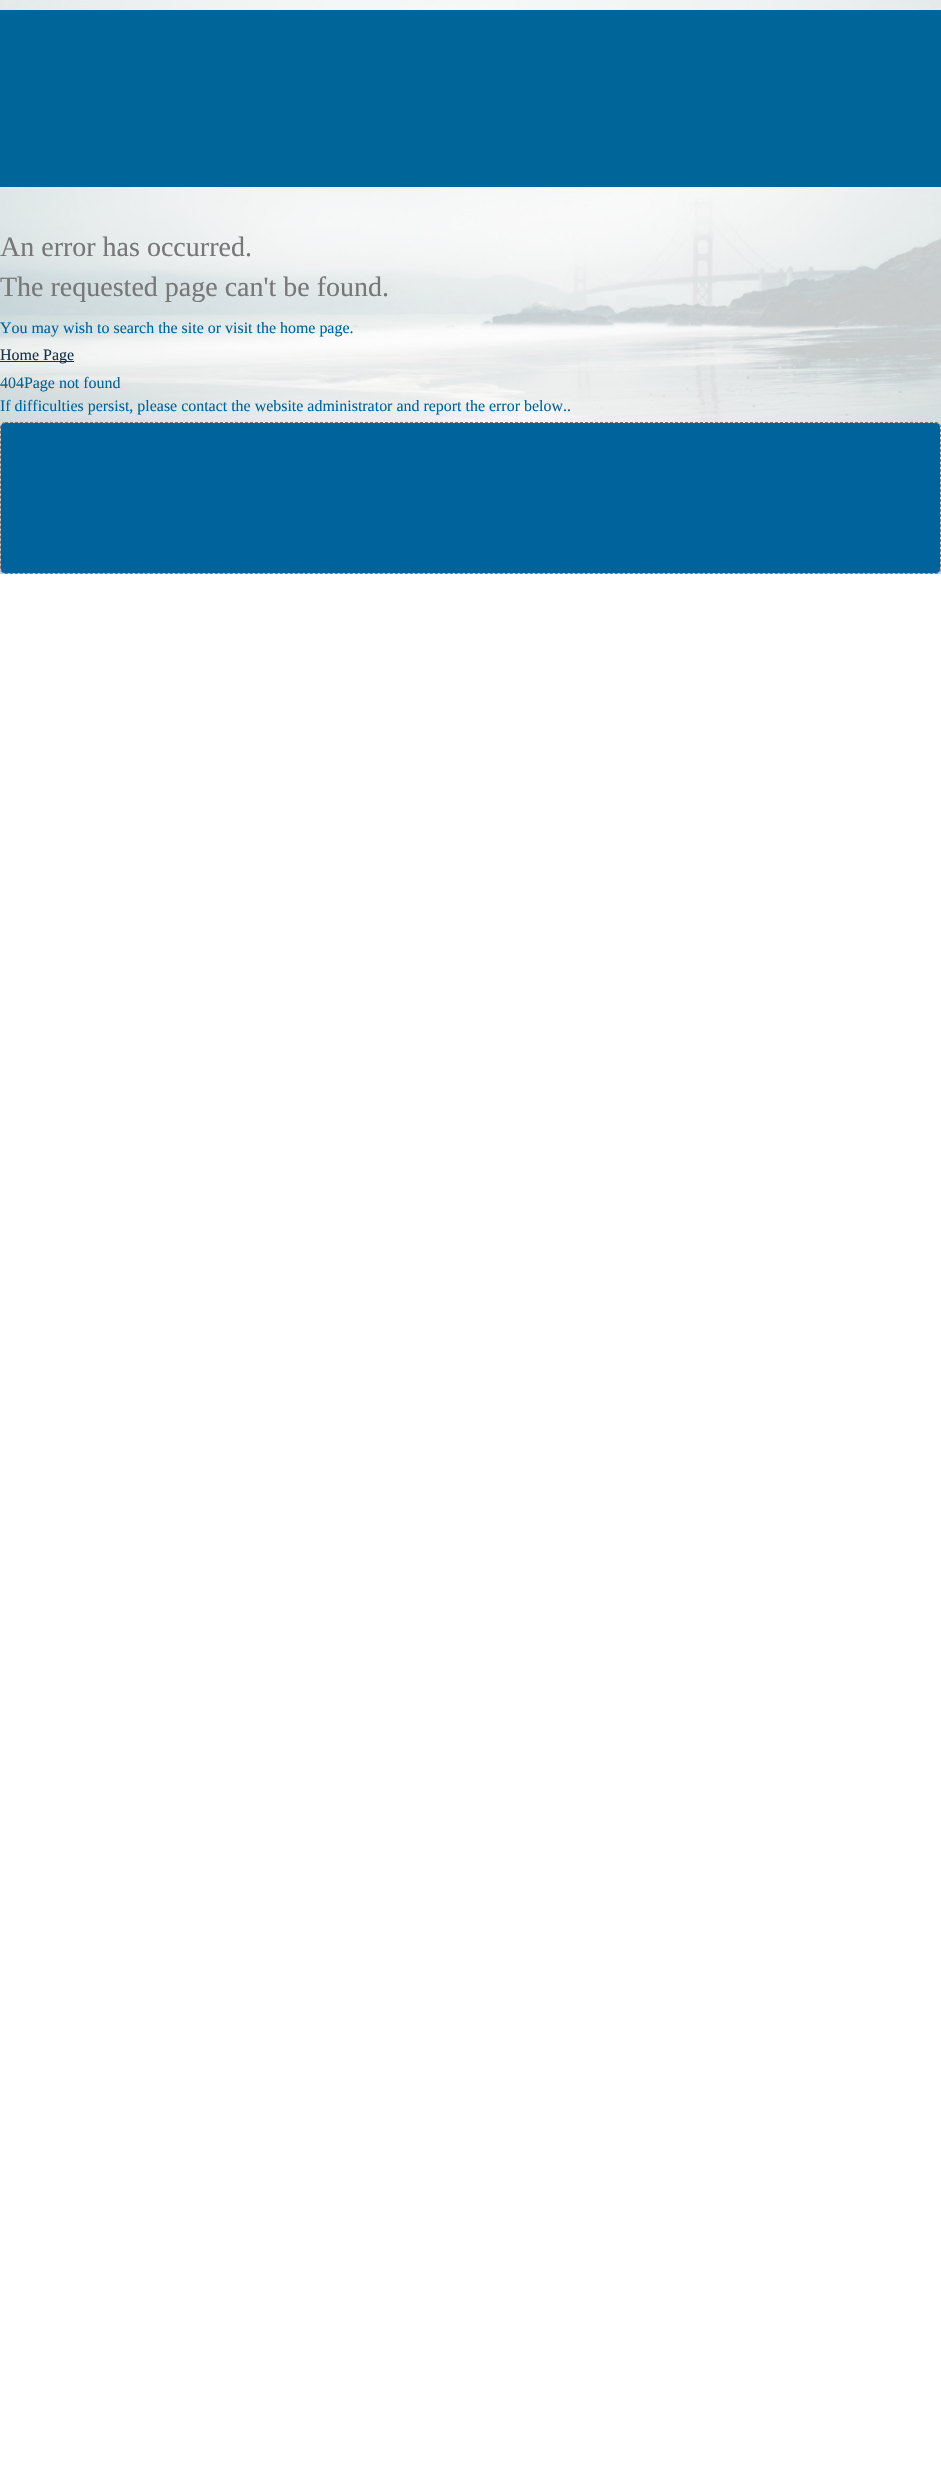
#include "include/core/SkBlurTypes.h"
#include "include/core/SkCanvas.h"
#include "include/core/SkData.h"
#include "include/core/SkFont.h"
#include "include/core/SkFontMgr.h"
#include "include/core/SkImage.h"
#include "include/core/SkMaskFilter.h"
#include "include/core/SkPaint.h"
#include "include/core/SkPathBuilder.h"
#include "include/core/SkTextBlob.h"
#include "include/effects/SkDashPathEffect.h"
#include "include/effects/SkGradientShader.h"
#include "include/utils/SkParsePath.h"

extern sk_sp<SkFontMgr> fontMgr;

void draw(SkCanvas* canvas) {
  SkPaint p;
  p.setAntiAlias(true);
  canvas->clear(SK_ColorWHITE);
  canvas->drawImageRect(SkImages::DeferredFromEncodedData(SkData::MakeFromFileName("images/1.png")), SkRect::MakeLTRB(0, 0, 941, 574), SkSamplingOptions());
  p.setColor(SkColorSetRGB(0, 101, 153));
  canvas->drawRect(SkRect::MakeLTRB(0, 10, 941, 187), p);
  p.setColor(SkColorSetRGB(19, 49, 75));
  canvas->drawRect(SkRect::MakeLTRB(0, 361, 74, 362), p);
  p.setColor(SkColorSetRGB(0, 99, 156));
  canvas->drawRoundRect(SkRect::MakeLTRB(1, 423, 940, 573), 4, 4, p);
  p.setStyle(SkPaint::kStroke_Style);
  p.setStrokeWidth(1);
  p.setColor(SkColorSetRGB(119, 119, 119));
  p.setPathEffect(SkDashPathEffect::Make({{3, 2}}, 0));
  canvas->drawPath(SkPathBuilder().moveTo(5, 422.5f).lineTo(936, 422.5f).cubicTo(938.5f, 422.5f, 940.5f, 424.5f, 940.5f, 427).lineTo(940.5f, 569).cubicTo(940.5f, 571.5f, 938.5f, 573.5f, 936, 573.5f).lineTo(5, 573.5f).cubicTo(2.5f, 573.5f, 0.5f, 571.5f, 0.5f, 569).lineTo(0.5f, 427).cubicTo(0.5f, 424.5f, 2.5f, 422.5f, 5, 422.5f).close().detach(), p);
  p.setPathEffect(nullptr);
  SkFont font1(fontMgr->matchFamilyStyle("Liberation Serif", SkFontStyle::Normal()), 28);
  font1.setSubpixel(true);
  p.setStyle(SkPaint::kFill_Style);
  canvas->drawString("An error has occurred.", 0, 256, font1, p);
  canvas->drawString("The requested page can't be found.", 0, 296, font1, p);
  SkFont font2(fontMgr->matchFamilyStyle("Liberation Serif", SkFontStyle::Normal()), 15.95f);
  font2.setSubpixel(true);
  p.setColor(SkColorSetRGB(0, 99, 156));
  canvas->drawString("You may wish to search the site or visit the home page.", 0, 333, font2, p);
  SkFont font3(fontMgr->matchFamilyStyle("Liberation Serif", SkFontStyle::Normal()), 16);
  font3.setSubpixel(true);
  p.setColor(SkColorSetRGB(19, 49, 75));
  canvas->drawString("Home Page", 0, 360, font3, p);
  p.setColor(SkColorSetRGB(0, 99, 156));
  canvas->drawString("404Page not found", 0, 388, font2, p);
  canvas->drawString("If difficulties persist, please contact the website administrator and report the error below..", 0, 411, font2, p);
}
